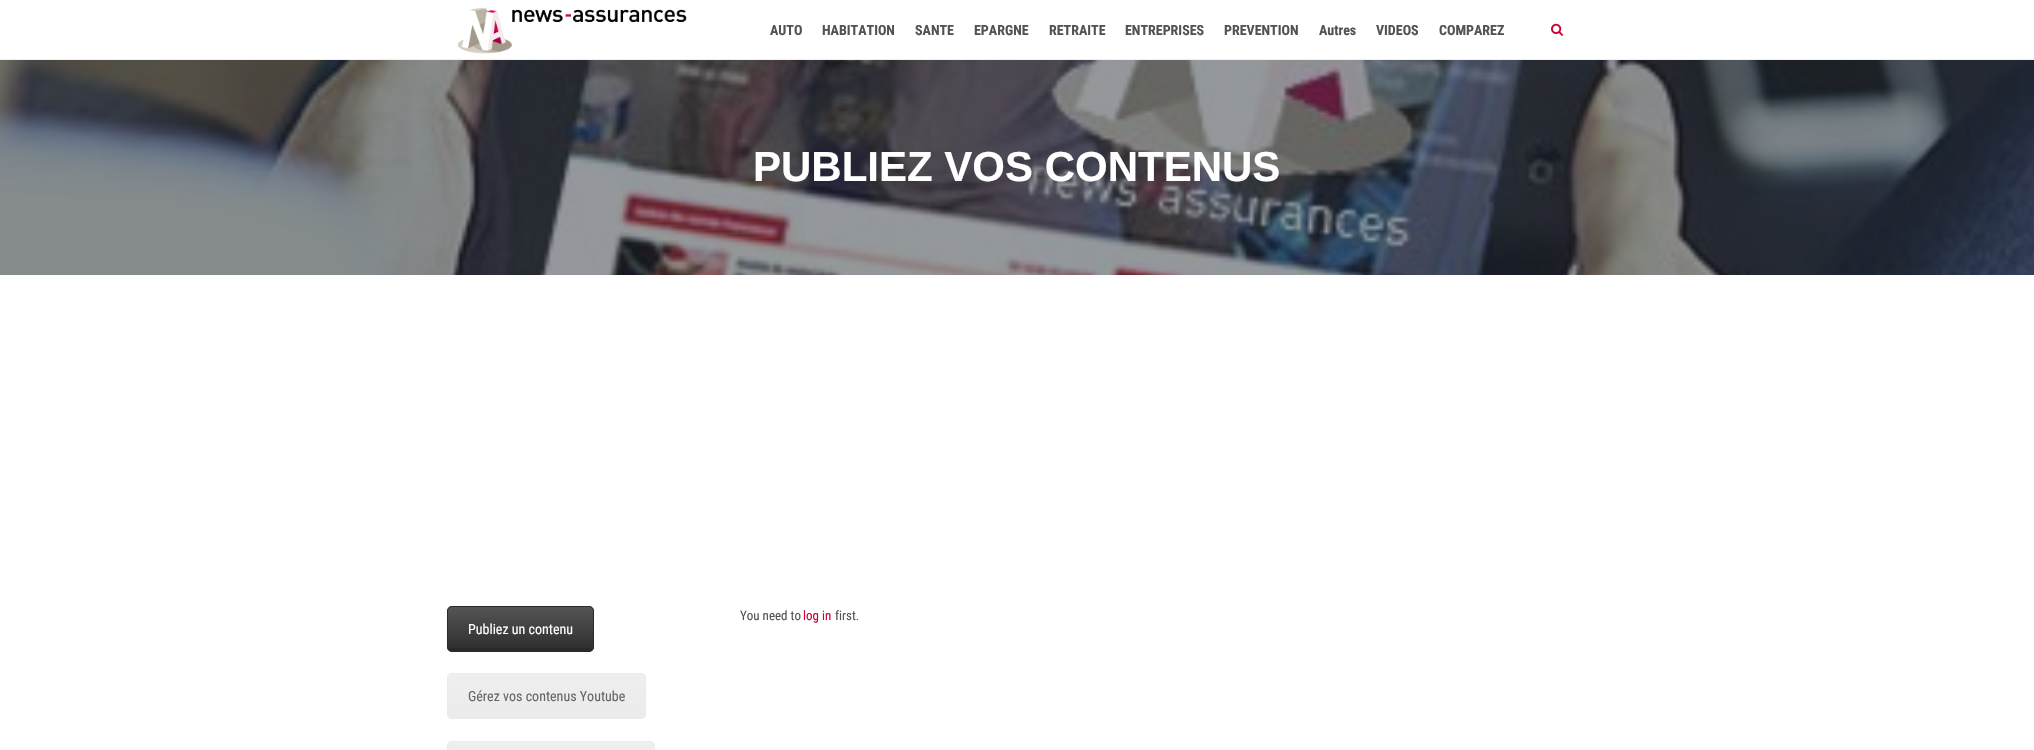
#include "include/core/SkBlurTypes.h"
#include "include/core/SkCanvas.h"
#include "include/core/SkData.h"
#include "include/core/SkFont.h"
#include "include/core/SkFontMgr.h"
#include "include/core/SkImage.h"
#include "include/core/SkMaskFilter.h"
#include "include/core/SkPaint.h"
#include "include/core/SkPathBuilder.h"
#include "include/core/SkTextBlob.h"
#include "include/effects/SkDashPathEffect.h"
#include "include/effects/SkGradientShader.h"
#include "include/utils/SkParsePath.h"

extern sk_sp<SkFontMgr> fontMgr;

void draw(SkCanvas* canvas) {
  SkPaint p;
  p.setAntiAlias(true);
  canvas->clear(SK_ColorWHITE);
  p.setColor(SkColorSetRGB(240, 240, 240));
  canvas->drawRect(SkRect::MakeLTRB(0, 59, 2034, 60), p);
  canvas->drawImageRect(SkImages::DeferredFromEncodedData(SkData::MakeFromFileName("images/1.png")), SkRect::MakeLTRB(457, 7, 687, 54), SkSamplingOptions());
  canvas->drawImageRect(SkImages::DeferredFromEncodedData(SkData::MakeFromFileName("images/2.png")), SkRect::MakeLTRB(1551, 23, 1563, 36), SkSamplingOptions());
  p.setColor(SkColorSetRGB(42, 50, 57));
  canvas->drawRect(SkRect::MakeLTRB(0, 60, 2034, 275), p);
  canvas->drawImageRect(SkImages::DeferredFromEncodedData(SkData::MakeFromFileName("images/3.png")), SkRect::MakeLTRB(0, 60, 2034, 275), SkSamplingOptions());
  p.setColor(SkColorSetRGB(42, 42, 42));
  canvas->drawRoundRect(SkRect::MakeLTRB(447, 606, 594, 652), 5, 5, p);
  canvas->save();
  canvas->clipPath(SkPathBuilder().moveTo(452, 606).lineTo(589, 606).cubicTo(592, 606, 594, 608, 594, 611).lineTo(594, 647).cubicTo(594, 650, 592, 652, 589, 652).lineTo(452, 652).cubicTo(449, 652, 447, 650, 447, 647).lineTo(447, 611).cubicTo(447, 608, 449, 606, 452, 606).close().detach(), true);
  {
    const SkColor colors[] = {SkColorSetARGB(51, 255, 255, 255), SkColorSetARGB(3, 255, 255, 255)};
    const float stops[] = {0, 1};
    const SkPoint ends[] = {{521, 607}, {521, 651}};
    p.setShader(SkGradientShader::MakeLinear(ends, colors, stops, 2, SkTileMode::kClamp));
    p.setAlpha(255);
  }
  canvas->drawRect(SkRect::MakeLTRB(447, 607, 594, 648), p);
  canvas->restore();
  p.setStyle(SkPaint::kStroke_Style);
  p.setStrokeWidth(1);
  p.setShader(nullptr);
  p.setColor(SkColorSetRGB(42, 42, 42));
  canvas->drawRoundRect(SkRect::MakeLTRB(447.5f, 606.5f, 593.5f, 651.5f), 4.5f, 4.5f, p);
  p.setStyle(SkPaint::kFill_Style);
  p.setColor(SkColorSetRGB(235, 235, 235));
  canvas->drawRoundRect(SkRect::MakeLTRB(447, 673, 646, 719), 5, 5, p);
  canvas->save();
  canvas->clipPath(SkPathBuilder().moveTo(452, 673).lineTo(641, 673).cubicTo(644, 673, 646, 675, 646, 678).lineTo(646, 714).cubicTo(646, 717, 644, 719, 641, 719).lineTo(452, 719).cubicTo(449, 719, 447, 717, 447, 714).lineTo(447, 678).cubicTo(447, 675, 449, 673, 452, 673).close().detach(), true);
  {
    const SkColor colors[] = {SkColorSetARGB(51, 255, 255, 255), SkColorSetARGB(3, 255, 255, 255)};
    const float stops[] = {0, 1};
    const SkPoint ends[] = {{547, 674}, {547, 718}};
    p.setShader(SkGradientShader::MakeLinear(ends, colors, stops, 2, SkTileMode::kClamp));
    p.setAlpha(255);
  }
  canvas->drawRect(SkRect::MakeLTRB(447, 674, 646, 715), p);
  canvas->restore();
  p.setStyle(SkPaint::kStroke_Style);
  p.setShader(nullptr);
  p.setColor(SkColorSetRGB(235, 235, 235));
  canvas->drawRoundRect(SkRect::MakeLTRB(447.5f, 673.5f, 645.5f, 718.5f), 4.5f, 4.5f, p);
  p.setStyle(SkPaint::kFill_Style);
  canvas->drawRoundRect(SkRect::MakeLTRB(447, 741, 655, 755), 5, 5, p);
  canvas->save();
  canvas->clipPath(SkPathBuilder().moveTo(452, 741).lineTo(650, 741).cubicTo(653, 741, 655, 743, 655, 746).lineTo(655, 782).cubicTo(655, 785, 653, 787, 650, 787).lineTo(452, 787).cubicTo(449, 787, 447, 785, 447, 782).lineTo(447, 746).cubicTo(447, 743, 449, 741, 452, 741).close().detach(), true);
  {
    const SkColor colors[] = {SkColorSetARGB(51, 255, 255, 255), SkColorSetARGB(3, 255, 255, 255)};
    const float stops[] = {0, 1};
    const SkPoint ends[] = {{551, 742}, {551, 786}};
    p.setShader(SkGradientShader::MakeLinear(ends, colors, stops, 2, SkTileMode::kClamp));
    p.setAlpha(255);
  }
  canvas->drawRect(SkRect::MakeLTRB(447, 742, 655, 750), p);
  canvas->restore();
  p.setStyle(SkPaint::kStroke_Style);
  p.setShader(nullptr);
  p.setColor(SkColorSetRGB(235, 235, 235));
  canvas->drawRoundRect(SkRect::MakeLTRB(447.5f, 741.5f, 654.5f, 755.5f), 4.5f, 4.5f, p);
  SkFont font1(fontMgr->matchFamilyStyle("Roboto Condensed", SkFontStyle::Bold()), 14);
  font1.setSubpixel(true);
  p.setStyle(SkPaint::kFill_Style);
  p.setColor(SkColorSetRGB(82, 82, 82));
  canvas->drawString("AUTO", 770, 35, font1, p);
  canvas->drawString("HABITATION", 822, 35, font1, p);
  canvas->drawString("SANTE", 915, 35, font1, p);
  canvas->drawString("EPARGNE", 974, 35, font1, p);
  canvas->drawString("RETRAITE", 1049, 35, font1, p);
  canvas->drawString("ENTREPRISES", 1125, 35, font1, p);
  canvas->drawString("PREVENTION", 1224, 35, font1, p);
  canvas->drawString("Autres", 1319, 35, font1, p);
  canvas->drawString("VIDEOS", 1376, 35, font1, p);
  canvas->drawString("COMPAREZ", 1439, 35, font1, p);
  SkFont font2(fontMgr->matchFamilyStyle("Liberation Sans", SkFontStyle::Bold()), 42);
  font2.setSubpixel(true);
  p.setColor(SK_ColorWHITE);
  canvas->drawString("PUBLIEZ VOS CONTENUS", 753, 181, font2, p);
  SkFont font3(fontMgr->matchFamilyStyle("Roboto Condensed", SkFontStyle::Normal()), 13);
  font3.setSubpixel(true);
  p.setColor(SkColorSetRGB(82, 82, 82));
  canvas->drawString("You need to", 740, 620, font3, p);
  p.setColor(SkColorSetRGB(204, 0, 51));
  canvas->drawString("log in", 803, 620, font3, p);
  p.setColor(SkColorSetRGB(82, 82, 82));
  canvas->drawString("first.", 835, 620, font3, p);
  SkFont font4(fontMgr->matchFamilyStyle("Roboto Condensed", SkFontStyle::Normal()), 14);
  font4.setSubpixel(true);
  p.setColor(SK_ColorWHITE);
  canvas->drawString("Publiez un contenu", 468, 634, font4, p);
  p.setColor(SkColorSetRGB(102, 102, 102));
  canvas->drawString("Gérez vos contenus Youtube", 468, 701, font4, p);
}
